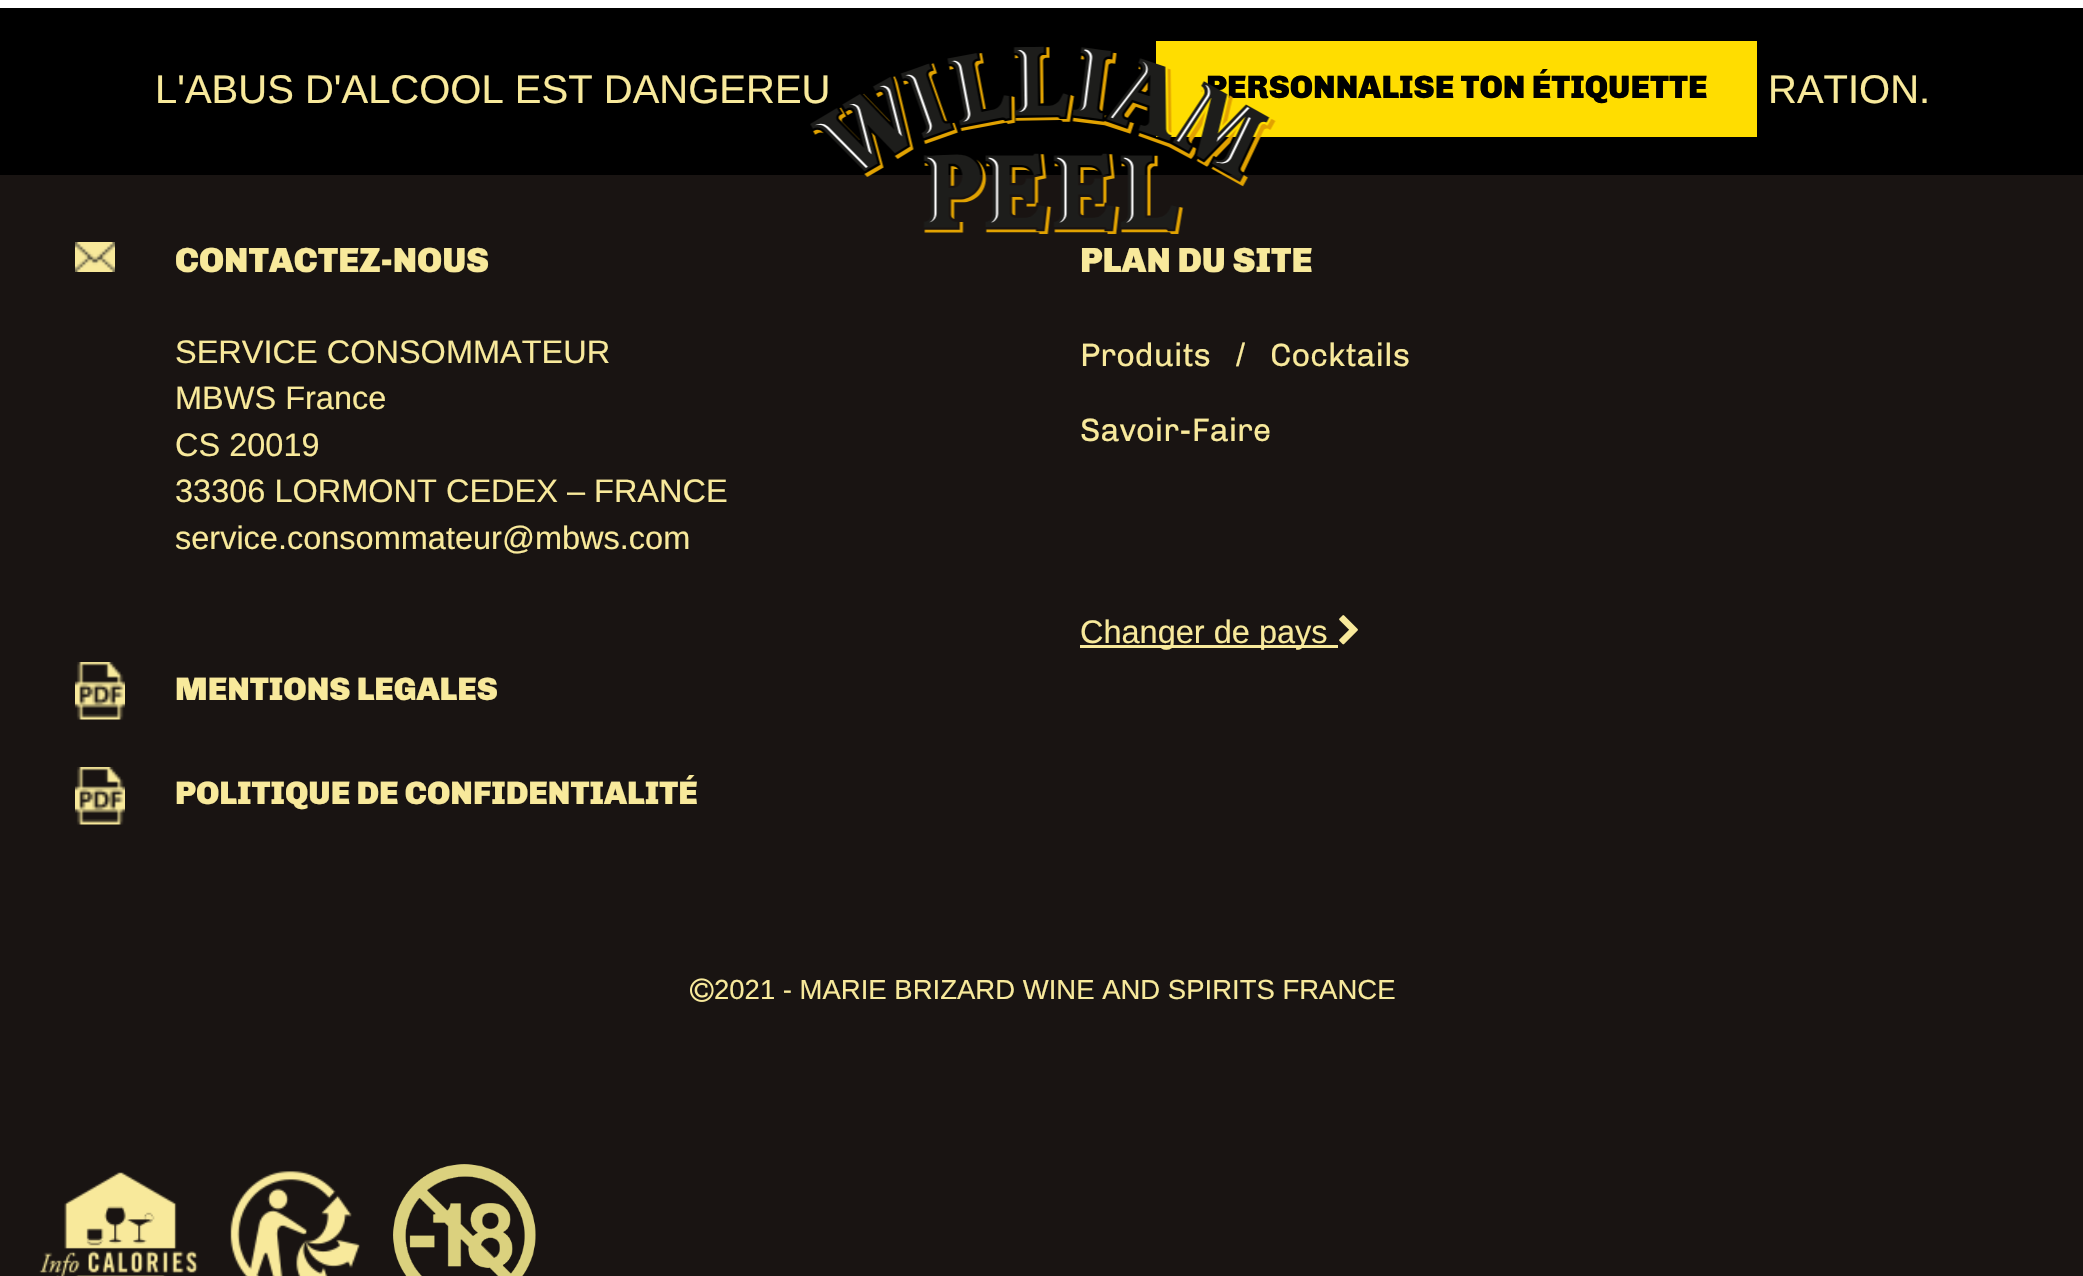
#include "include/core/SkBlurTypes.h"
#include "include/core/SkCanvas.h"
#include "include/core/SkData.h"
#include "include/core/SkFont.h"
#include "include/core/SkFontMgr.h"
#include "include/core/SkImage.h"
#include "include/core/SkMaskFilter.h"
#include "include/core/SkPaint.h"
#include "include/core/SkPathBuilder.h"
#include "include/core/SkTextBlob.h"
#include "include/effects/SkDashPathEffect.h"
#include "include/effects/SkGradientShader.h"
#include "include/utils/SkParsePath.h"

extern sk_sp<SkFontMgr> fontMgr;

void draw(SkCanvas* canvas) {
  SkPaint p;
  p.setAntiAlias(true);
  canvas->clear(SK_ColorWHITE);
  p.setColor(SK_ColorBLACK);
  canvas->drawRect(SkRect::MakeLTRB(0, 8, 2083, 175), p);
  p.setColor(SkColorSetRGB(255, 221, 0));
  canvas->drawRect(SkRect::MakeLTRB(1156, 41, 1757, 137), p);
  p.setColor(SkColorSetRGB(25, 20, 18));
  canvas->drawRect(SkRect::MakeLTRB(0, 175, 2083, 1276), p);
  canvas->drawImageRect(SkImages::DeferredFromEncodedData(SkData::MakeFromFileName("images/2.png")), SkRect::MakeLTRB(75, 242, 115, 272), SkSamplingOptions());
  canvas->drawImageRect(SkImages::DeferredFromEncodedData(SkData::MakeFromFileName("images/3.png")), SkRect::MakeLTRB(75, 662, 125, 720), SkSamplingOptions());
  canvas->drawImageRect(SkImages::DeferredFromEncodedData(SkData::MakeFromFileName("images/3.png")), SkRect::MakeLTRB(75, 767, 125, 825), SkSamplingOptions());
  p.setColor(SkColorSetRGB(248, 233, 155));
  canvas->drawRect(SkRect::MakeLTRB(1080, 645, 1338, 648), p);
  canvas->drawImageRect(SkImages::DeferredFromEncodedData(SkData::MakeFromFileName("images/4.png")), SkRect::MakeLTRB(1339, 615, 1358, 645), SkSamplingOptions());
  canvas->drawImageRect(SkImages::DeferredFromEncodedData(SkData::MakeFromFileName("images/5.png")), SkRect::MakeLTRB(690, 978, 714, 1002), SkSamplingOptions());
  canvas->drawImageRect(SkImages::DeferredFromEncodedData(SkData::MakeFromFileName("images/6.png")), SkRect::MakeLTRB(39, 1172, 198, 1276), SkSamplingOptions());
  canvas->drawImageRect(SkImages::DeferredFromEncodedData(SkData::MakeFromFileName("images/7.png")), SkRect::MakeLTRB(230, 1171, 360, 1276), SkSamplingOptions());
  canvas->drawImageRect(SkImages::DeferredFromEncodedData(SkData::MakeFromFileName("images/8.png")), SkRect::MakeLTRB(393, 1164, 536, 1276), SkSamplingOptions());
  SkFont font1(fontMgr->matchFamilyStyle("Chivo", SkFontStyle(900, SkFontStyle::kNormal_Width, SkFontStyle::kUpright_Slant)), 32.5f);
  font1.setSubpixel(true);
  p.setColor(SK_ColorBLACK);
  canvas->drawString("PERSONNALISE TON ÉTIQUETTE", 1206, 98, font1, p);
  SkFont font2(fontMgr->matchFamilyStyle("Liberation Sans", SkFontStyle::Normal()), 40);
  font2.setSubpixel(true);
  p.setColor(SkColorSetRGB(248, 233, 155));
  canvas->drawString("L'ABUS D'ALCOOL EST DANGEREU", 155, 103, font2, p);
  canvas->drawImageRect(SkImages::DeferredFromEncodedData(SkData::MakeFromFileName("images/1.png")), SkRect::MakeLTRB(810, 46, 1276, 234), SkSamplingOptions());
  canvas->drawString("RATION.", 1768, 103, font2, p);
  SkFont font3(fontMgr->matchFamilyStyle("Chivo", SkFontStyle(900, SkFontStyle::kNormal_Width, SkFontStyle::kUpright_Slant)), 35);
  font3.setSubpixel(true);
  canvas->drawString("CONTACTEZ-NOUS", 175, 272, font3, p);
  SkFont font4(fontMgr->matchFamilyStyle("Liberation Sans", SkFontStyle::Normal()), 32.5f);
  font4.setSubpixel(true);
  canvas->drawString("SERVICE CONSOMMATEUR", 175, 363, font4, p);
  canvas->drawString("MBWS France", 175, 409, font4, p);
  canvas->drawString("CS 20019", 175, 456, font4, p);
  canvas->drawString("33306 LORMONT CEDEX – FRANCE", 175, 502, font4, p);
  canvas->drawString("service.consommateur@mbws.com", 175, 549, font4, p);
  canvas->drawString("MENTIONS LEGALES", 175, 700, font1, p);
  canvas->drawString("POLITIQUE DE CONFIDENTIALITÉ", 175, 804, font1, p);
  canvas->drawString("PLAN DU SITE", 1080, 272, font3, p);
  SkFont font5(fontMgr->matchFamilyStyle("Chivo", SkFontStyle::Normal()), 32.5f);
  font5.setSubpixel(true);
  canvas->drawString("Produits", 1080, 366, font5, p);
  canvas->drawString("/", 1236, 366, font4, p);
  canvas->drawString("Cocktails", 1270, 366, font5, p);
  canvas->drawString("Savoir-Faire", 1080, 441, font5, p);
  canvas->drawString("Changer de pays", 1080, 643, font4, p);
  SkFont font6(fontMgr->matchFamilyStyle("Liberation Sans", SkFontStyle::Normal()), 27.5f);
  font6.setSubpixel(true);
  canvas->drawString("2021 - MARIE BRIZARD WINE AND SPIRITS FRANCE", 714, 999, font6, p);
}
